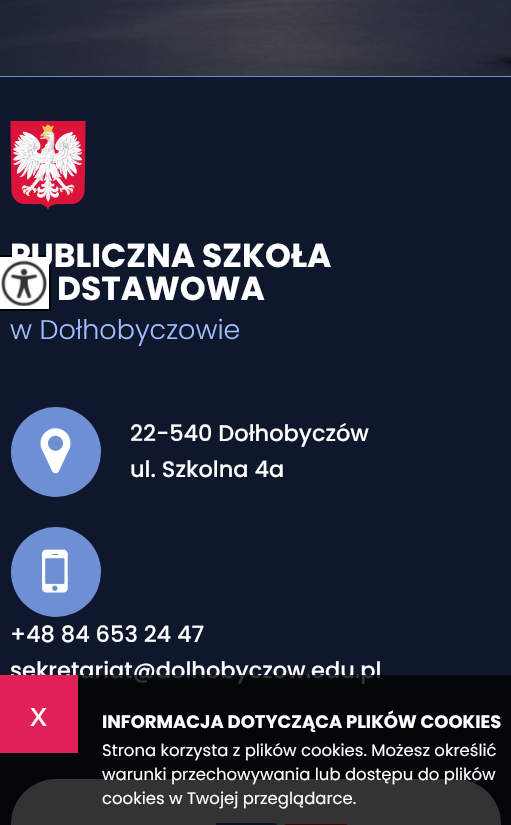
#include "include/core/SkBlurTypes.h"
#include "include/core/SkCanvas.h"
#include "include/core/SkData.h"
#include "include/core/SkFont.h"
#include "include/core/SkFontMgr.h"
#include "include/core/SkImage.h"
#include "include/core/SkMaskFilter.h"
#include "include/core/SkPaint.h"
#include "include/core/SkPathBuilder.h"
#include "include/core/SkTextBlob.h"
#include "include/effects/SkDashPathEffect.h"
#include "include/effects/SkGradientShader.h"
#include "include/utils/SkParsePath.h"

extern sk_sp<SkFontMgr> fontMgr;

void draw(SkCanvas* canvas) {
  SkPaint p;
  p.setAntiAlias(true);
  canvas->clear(SkColorSetRGB(109, 141, 207));
  canvas->drawImageRect(SkImages::DeferredFromEncodedData(SkData::MakeFromFileName("images/1.png")), SkRect::MakeLTRB(0, 0, 511, 76), SkSamplingOptions());
  p.setColor(SkColorSetRGB(14, 23, 44));
  canvas->drawRect(SkRect::MakeLTRB(0, 77, 511, 825), p);
  canvas->drawImageRect(SkImages::DeferredFromEncodedData(SkData::MakeFromFileName("images/2.png")), SkRect::MakeLTRB(10, 121, 86, 210), SkSamplingOptions());
  p.setColor(SkColorSetRGB(111, 143, 212));
  canvas->drawCircle(56, 452, 45, p);
  canvas->drawImageRect(SkImages::DeferredFromEncodedData(SkData::MakeFromFileName("images/3.png")), SkRect::MakeLTRB(40, 428, 71, 474), SkSamplingOptions());
  canvas->drawCircle(56, 572, 45, p);
  canvas->drawImageRect(SkImages::DeferredFromEncodedData(SkData::MakeFromFileName("images/4.png")), SkRect::MakeLTRB(42, 549, 68, 593), SkSamplingOptions());
  p.setColor(SK_ColorWHITE);
  canvas->drawRoundRect(SkRect::MakeLTRB(11, 779, 501, 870), 45, 45, p);
  canvas->drawImageRect(SkImages::DeferredFromEncodedData(SkData::MakeFromFileName("images/5.png")), SkRect::MakeLTRB(216, 823, 277, 825), SkSamplingOptions());
  canvas->drawImageRect(SkImages::DeferredFromEncodedData(SkData::MakeFromFileName("images/6.png")), SkRect::MakeLTRB(285, 824, 347, 825), SkSamplingOptions());
  canvas->drawRect(SkRect::MakeLTRB(-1, 256, 50, 310), p);
  p.setStyle(SkPaint::kStroke_Style);
  p.setStrokeWidth(2);
  p.setColor(SK_ColorBLACK);
  canvas->drawRect(SkRect::MakeLTRB(-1, 256, 50, 310), p);
  SkFont font1(fontMgr->matchFamilyStyle("Poppins", SkFontStyle::Bold()), 33);
  font1.setSubpixel(true);
  p.setStyle(SkPaint::kFill_Style);
  p.setColor(SK_ColorWHITE);
  canvas->drawString("PUBLICZNA SZKOŁA", 10, 267, font1, p);
  canvas->drawString("DSTAWOWA", 57, 300, font1, p);
  SkFont font2(fontMgr->matchFamilyStyle("Poppins", SkFontStyle(300, SkFontStyle::kNormal_Width, SkFontStyle::kUpright_Slant)), 27);
  font2.setSubpixel(true);
  p.setColor(SkColorSetRGB(160, 190, 255));
  canvas->drawString("w Dołhobyczowie", 10, 339, font2, p);
  SkFont font3(fontMgr->matchFamilyStyle("Poppins", SkFontStyle(500, SkFontStyle::kNormal_Width, SkFontStyle::kUpright_Slant)), 22.5f);
  font3.setSubpixel(true);
  p.setColor(SK_ColorWHITE);
  canvas->drawString("22-540 Dołhobyczów", 130, 441, font3, p);
  canvas->drawString("ul. Szkolna 4a", 130, 477, font3, p);
  canvas->drawString("+48 84 653 24 47", 10, 642, font3, p);
  canvas->drawString("sekretariat@dolhobyczow.edu.pl", 10, 678, font3, p);
  canvas->drawImageRect(SkImages::DeferredFromEncodedData(SkData::MakeFromFileName("images/7.png")), SkRect::MakeLTRB(1, 260, 47, 306), SkSamplingOptions());
  p.setColor(SkColorSetARGB(204, 0, 0, 0));
  canvas->drawRect(SkRect::MakeLTRB(0, 675, 511, 825), p);
  p.setColor(SkColorSetRGB(223, 33, 87));
  canvas->drawRect(SkRect::MakeLTRB(0, 675, 78, 753), p);
  SkFont font4(fontMgr->matchFamilyStyle("Liberation Sans", SkFontStyle::Normal()), 34);
  font4.setSubpixel(true);
  p.setColor(SK_ColorWHITE);
  canvas->drawString("x", 30, 726, font4, p);
  SkFont font5(fontMgr->matchFamilyStyle("Poppins", SkFontStyle::Bold()), 18);
  font5.setSubpixel(true);
  canvas->drawString("INFORMACJA DOTYCZĄCA PLIKÓW COOKIES", 102, 728, font5, p);
  SkFont font6(fontMgr->matchFamilyStyle("Poppins", SkFontStyle::Normal()), 16.5f);
  font6.setSubpixel(true);
  canvas->drawString("Strona korzysta z plików cookies. Możesz określić", 102, 756, font6, p);
  canvas->drawString("warunki przechowywania lub dostępu do plików", 102, 780, font6, p);
  canvas->drawString("cookies w Twojej przeglądarce.", 102, 804, font6, p);
}
